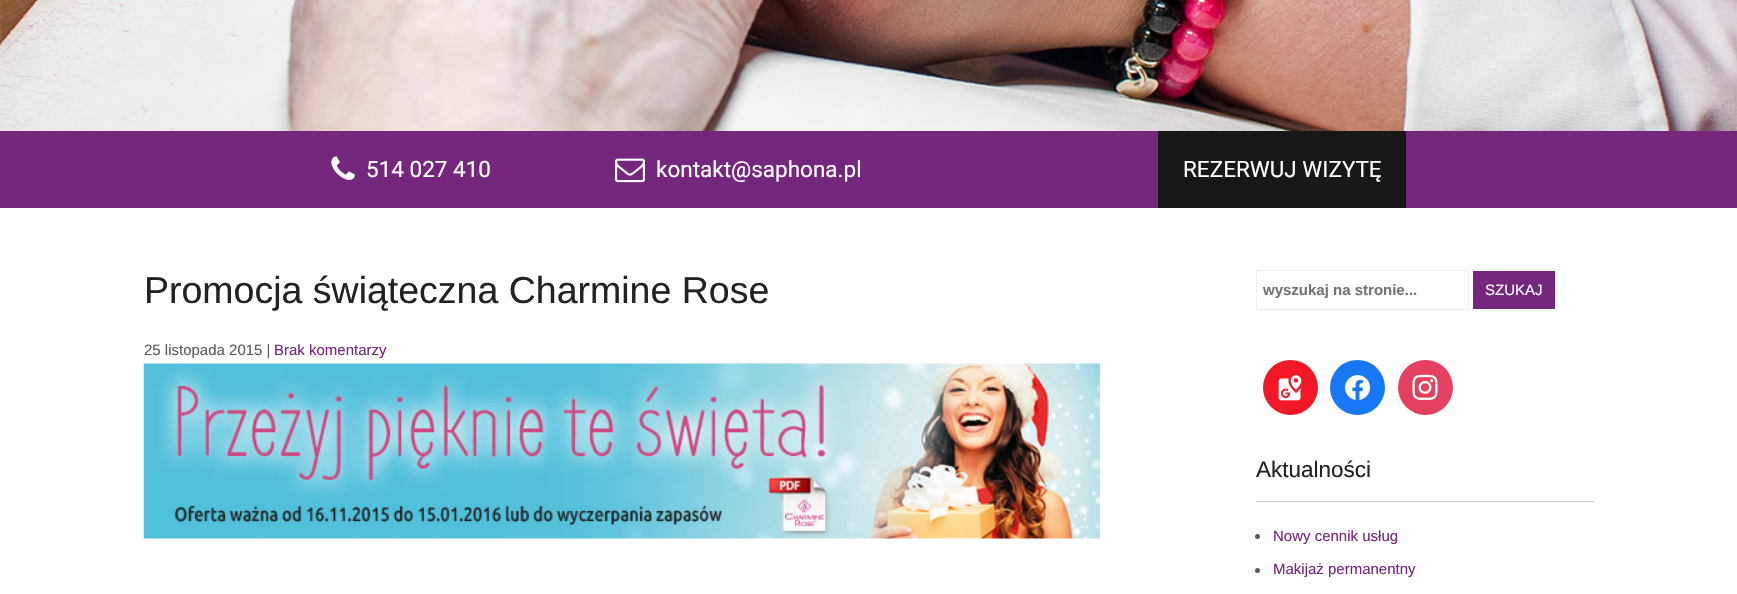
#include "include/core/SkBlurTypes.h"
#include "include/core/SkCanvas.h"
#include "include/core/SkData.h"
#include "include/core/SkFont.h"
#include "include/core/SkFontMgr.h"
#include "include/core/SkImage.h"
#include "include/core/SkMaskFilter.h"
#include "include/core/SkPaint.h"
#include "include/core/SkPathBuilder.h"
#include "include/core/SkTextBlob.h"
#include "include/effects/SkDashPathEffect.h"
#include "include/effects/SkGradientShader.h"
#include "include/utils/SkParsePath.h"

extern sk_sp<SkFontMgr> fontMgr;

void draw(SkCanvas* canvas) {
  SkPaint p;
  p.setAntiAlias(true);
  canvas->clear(SK_ColorWHITE);
  canvas->drawImageRect(SkImages::DeferredFromEncodedData(SkData::MakeFromFileName("images/1.png")), SkRect::MakeLTRB(0, 0, 1737, 131), SkSamplingOptions());
  p.setColor(SkColorSetRGB(117, 39, 125));
  canvas->drawRect(SkRect::MakeLTRB(0, 131, 1737, 208), p);
  canvas->drawImageRect(SkImages::DeferredFromEncodedData(SkData::MakeFromFileName("images/2.png")), SkRect::MakeLTRB(331, 156, 355, 180), SkSamplingOptions());
  canvas->drawImageRect(SkImages::DeferredFromEncodedData(SkData::MakeFromFileName("images/3.png")), SkRect::MakeLTRB(615, 158, 645, 183), SkSamplingOptions());
  p.setColor(SkColorSetRGB(23, 23, 23));
  canvas->drawRect(SkRect::MakeLTRB(1158, 131, 1406, 208), p);
  canvas->drawImageRect(SkImages::DeferredFromEncodedData(SkData::MakeFromFileName("images/4.png")), SkRect::MakeLTRB(143, 363, 1100, 539), SkSamplingOptions());
  p.setStyle(SkPaint::kStroke_Style);
  p.setStrokeWidth(1);
  p.setColor(SkColorSetRGB(238, 238, 238));
  canvas->drawRect(SkRect::MakeLTRB(1256.5f, 270.5f, 1468.5f, 309.5f), p);
  p.setStyle(SkPaint::kFill_Style);
  p.setColor(SkColorSetRGB(117, 39, 125));
  canvas->drawRect(SkRect::MakeLTRB(1473, 271, 1555, 309), p);
  p.setColor(SkColorSetRGB(242, 24, 39));
  canvas->drawCircle(1290.5f, 387.5f, 27.5f, p);
  canvas->drawImageRect(SkImages::DeferredFromEncodedData(SkData::MakeFromFileName("images/5.png")), SkRect::MakeLTRB(1278, 375, 1302, 401), SkSamplingOptions());
  p.setColor(SkColorSetRGB(24, 119, 242));
  canvas->drawCircle(1357.5f, 387.5f, 27.5f, p);
  canvas->drawImageRect(SkImages::DeferredFromEncodedData(SkData::MakeFromFileName("images/6.png")), SkRect::MakeLTRB(1345, 375, 1370, 400), SkSamplingOptions());
  p.setColor(SkColorSetRGB(228, 64, 95));
  canvas->drawCircle(1425.5f, 387.5f, 27.5f, p);
  canvas->drawImageRect(SkImages::DeferredFromEncodedData(SkData::MakeFromFileName("images/7.png")), SkRect::MakeLTRB(1412, 374, 1438, 400), SkSamplingOptions());
  p.setColor(SkColorSetRGB(204, 204, 204));
  canvas->drawRect(SkRect::MakeLTRB(1256, 501, 1594, 502), p);
  p.setColor(SkColorSetRGB(91, 91, 91));
  canvas->drawCircle(1257.5f, 536.5f, 2.5f, p);
  canvas->drawCircle(1257.5f, 570.5f, 2.5f, p);
  SkFont font1(fontMgr->matchFamilyStyle("Roboto", SkFontStyle::Normal()), 22.5f);
  font1.setSubpixel(true);
  p.setColor(SK_ColorWHITE);
  canvas->drawString("514 027 410", 366, 177, font1, p);
  canvas->drawString("kontakt@saphona.pl", 656, 177, font1, p);
  canvas->drawString("REZERWUJ WIZYTĘ", 1183, 177, font1, p);
  SkFont font2(fontMgr->matchFamilyStyle("Liberation Sans", SkFontStyle::Normal()), 37.5f);
  font2.setSubpixel(true);
  p.setColor(SkColorSetRGB(34, 34, 34));
  canvas->drawString("Promocja świąteczna Charmine Rose", 144, 303, font2, p);
  SkFont font3(fontMgr->matchFamilyStyle("Liberation Sans", SkFontStyle::Normal()), 15);
  font3.setSubpixel(true);
  p.setColor(SkColorSetRGB(91, 91, 91));
  canvas->drawString("25 listopada 2015 |", 144, 355, font3, p);
  p.setColor(SkColorSetRGB(117, 39, 125));
  canvas->drawString("Brak komentarzy", 274, 355, font3, p);
  SkFont font4(fontMgr->matchFamilyStyle("Liberation Sans", SkFontStyle::Bold()), 15);
  font4.setSubpixel(true);
  p.setColor(SkColorSetRGB(117, 117, 117));
  canvas->drawString("wyszukaj na stronie...", 1263, 295, font4, p);
  p.setColor(SK_ColorWHITE);
  canvas->drawString("SZUKAJ", 1485, 295, font3, p);
  SkFont font5(fontMgr->matchFamilyStyle("Liberation Sans", SkFontStyle::Normal()), 22.5f);
  font5.setSubpixel(true);
  p.setColor(SkColorSetRGB(34, 34, 34));
  canvas->drawString("Aktualności", 1256, 477, font5, p);
  p.setColor(SkColorSetRGB(117, 39, 125));
  canvas->drawString("Nowy cennik usług", 1273, 541, font3, p);
  canvas->drawString("Makijaż permanentny", 1273, 574, font3, p);
}
